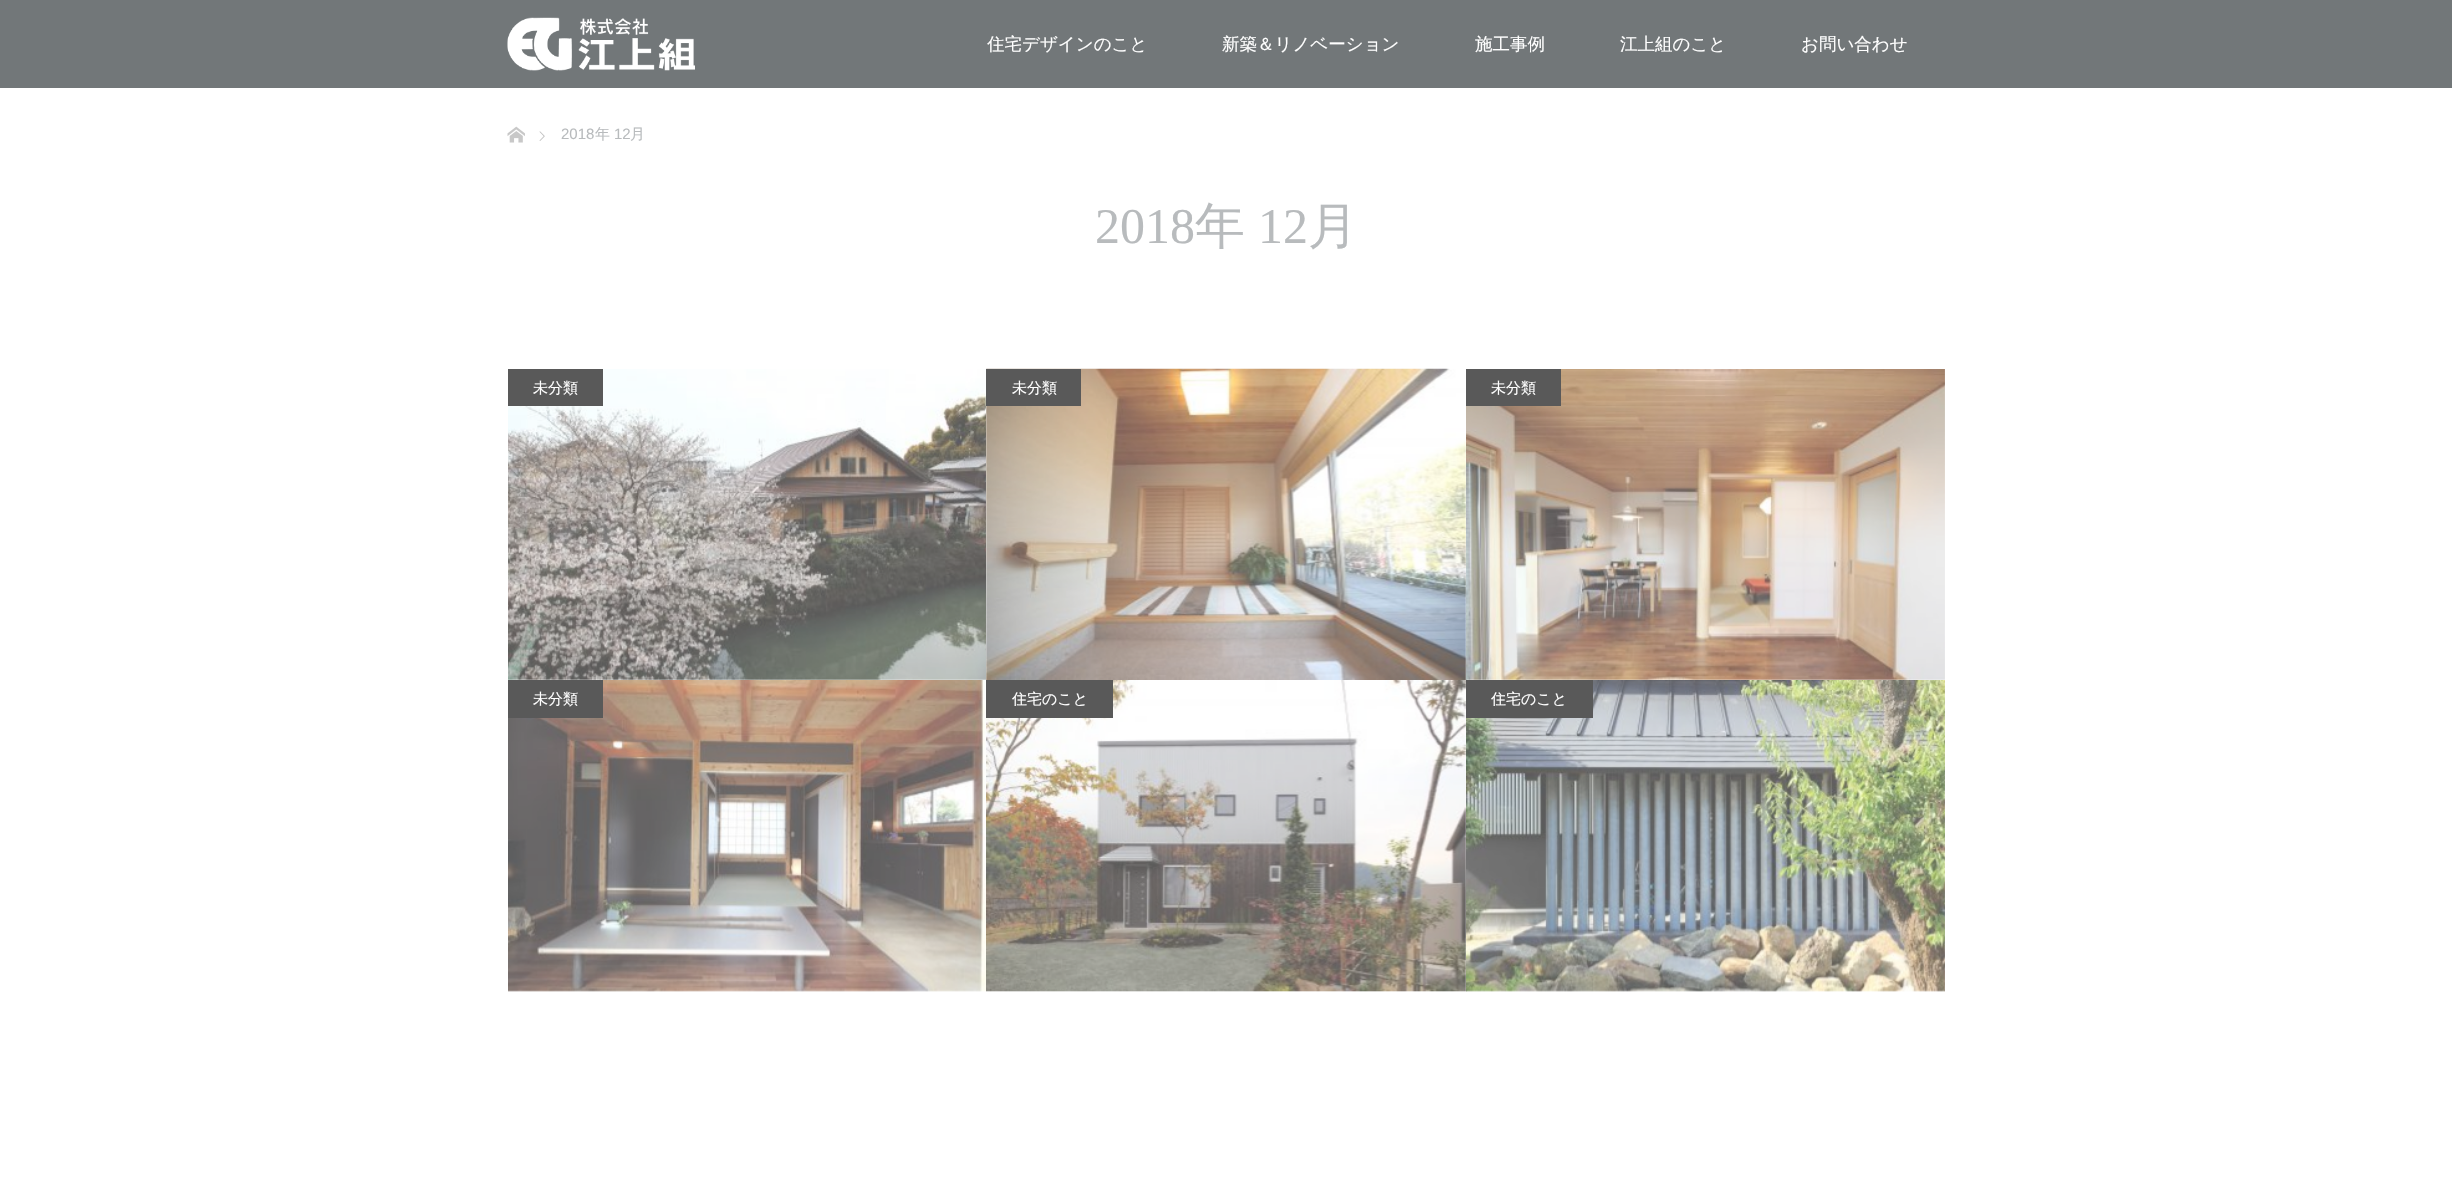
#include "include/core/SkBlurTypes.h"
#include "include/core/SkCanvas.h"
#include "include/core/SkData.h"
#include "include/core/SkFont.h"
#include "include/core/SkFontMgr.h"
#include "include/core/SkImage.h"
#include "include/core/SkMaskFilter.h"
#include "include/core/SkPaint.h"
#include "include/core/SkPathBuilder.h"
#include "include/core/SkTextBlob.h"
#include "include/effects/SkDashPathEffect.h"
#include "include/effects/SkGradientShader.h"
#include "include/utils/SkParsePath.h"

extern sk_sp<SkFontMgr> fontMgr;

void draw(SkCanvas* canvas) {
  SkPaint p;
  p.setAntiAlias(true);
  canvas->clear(SK_ColorWHITE);
  p.setColor(SkColorSetRGB(114, 119, 121));
  canvas->drawRect(SkRect::MakeLTRB(0, 0, 2452, 88), p);
  canvas->drawImageRect(SkImages::DeferredFromEncodedData(SkData::MakeFromFileName("images/1.png")), SkRect::MakeLTRB(507, 17, 695, 71), SkSamplingOptions());
  canvas->drawImageRect(SkImages::DeferredFromEncodedData(SkData::MakeFromFileName("images/2.png")), SkRect::MakeLTRB(507, 126, 525, 143), SkSamplingOptions());
  canvas->drawImageRect(SkImages::DeferredFromEncodedData(SkData::MakeFromFileName("images/3.png")), SkRect::MakeLTRB(539, 131, 545, 141), SkSamplingOptions());
  canvas->drawImageRect(SkImages::DeferredFromEncodedData(SkData::MakeFromFileName("images/4.png")), SkRect::MakeLTRB(508, 369, 986, 680), SkSamplingOptions());
  p.setColor(SkColorSetRGB(89, 89, 89));
  canvas->drawRect(SkRect::MakeLTRB(508, 369, 603, 406), p);
  canvas->drawImageRect(SkImages::DeferredFromEncodedData(SkData::MakeFromFileName("images/5.png")), SkRect::MakeLTRB(986, 368, 1467, 680), SkSamplingOptions());
  canvas->drawRect(SkRect::MakeLTRB(986, 369, 1081, 406), p);
  canvas->drawImageRect(SkImages::DeferredFromEncodedData(SkData::MakeFromFileName("images/6.png")), SkRect::MakeLTRB(1466, 369, 1945, 680), SkSamplingOptions());
  canvas->drawRect(SkRect::MakeLTRB(1466, 369, 1561, 406), p);
  canvas->drawImageRect(SkImages::DeferredFromEncodedData(SkData::MakeFromFileName("images/7.png")), SkRect::MakeLTRB(508, 680, 986, 992), SkSamplingOptions());
  canvas->drawRect(SkRect::MakeLTRB(508, 680, 603, 718), p);
  canvas->drawImageRect(SkImages::DeferredFromEncodedData(SkData::MakeFromFileName("images/8.png")), SkRect::MakeLTRB(986, 680, 1467, 992), SkSamplingOptions());
  canvas->drawRect(SkRect::MakeLTRB(986, 680, 1113, 718), p);
  canvas->drawImageRect(SkImages::DeferredFromEncodedData(SkData::MakeFromFileName("images/9.png")), SkRect::MakeLTRB(1466, 680, 1945, 992), SkSamplingOptions());
  canvas->drawRect(SkRect::MakeLTRB(1466, 680, 1593, 718), p);
  SkFont font1(fontMgr->matchFamilyStyle("WenQuanYi Zen Hei", SkFontStyle(500, SkFontStyle::kNormal_Width, SkFontStyle::kUpright_Slant)), 17.5f);
  font1.setSubpixel(true);
  p.setColor(SK_ColorWHITE);
  canvas->drawString("住宅デザインのこと", 987, 50, font1, p);
  canvas->drawString("新築＆リノベーション", 1222, 50, font1, p);
  canvas->drawString("施工事例", 1475, 50, font1, p);
  canvas->drawString("江上組のこと", 1620, 50, font1, p);
  canvas->drawString("お問い合わせ", 1801, 50, font1, p);
  SkFont font2(fontMgr->matchFamilyStyle("Liberation Sans", SkFontStyle::Normal()), 15);
  font2.setSubpixel(true);
  p.setColor(SkColorSetRGB(184, 187, 189));
  canvas->drawString("2018", 561, 139, font2, p);
  SkFont font3(fontMgr->matchFamilyStyle("WenQuanYi Zen Hei", SkFontStyle(500, SkFontStyle::kNormal_Width, SkFontStyle::kUpright_Slant)), 15);
  font3.setSubpixel(true);
  canvas->drawString("年", 595, 139, font3, p);
  canvas->drawString("12", 614, 139, font2, p);
  canvas->drawString("月", 630, 139, font3, p);
  SkFont font4(fontMgr->matchFamilyStyle("Liberation Serif", SkFontStyle::Normal()), 50);
  font4.setSubpixel(true);
  canvas->drawString("2018", 1095, 243, font4, p);
  SkFont font5(fontMgr->matchFamilyStyle("WenQuanYi Zen Hei", SkFontStyle(500, SkFontStyle::kNormal_Width, SkFontStyle::kUpright_Slant)), 50);
  font5.setSubpixel(true);
  canvas->drawString("年", 1195, 243, font5, p);
  canvas->drawString("12", 1258, 243, font4, p);
  canvas->drawString("月", 1308, 243, font5, p);
  p.setColor(SK_ColorWHITE);
  canvas->drawString("未分類", 533, 393, font3, p);
  canvas->drawString("未分類", 1012, 393, font3, p);
  canvas->drawString("未分類", 1491, 393, font3, p);
  canvas->drawString("未分類", 533, 704, font3, p);
  canvas->drawString("住宅のこと", 1012, 704, font3, p);
  canvas->drawString("住宅のこと", 1491, 704, font3, p);
}
